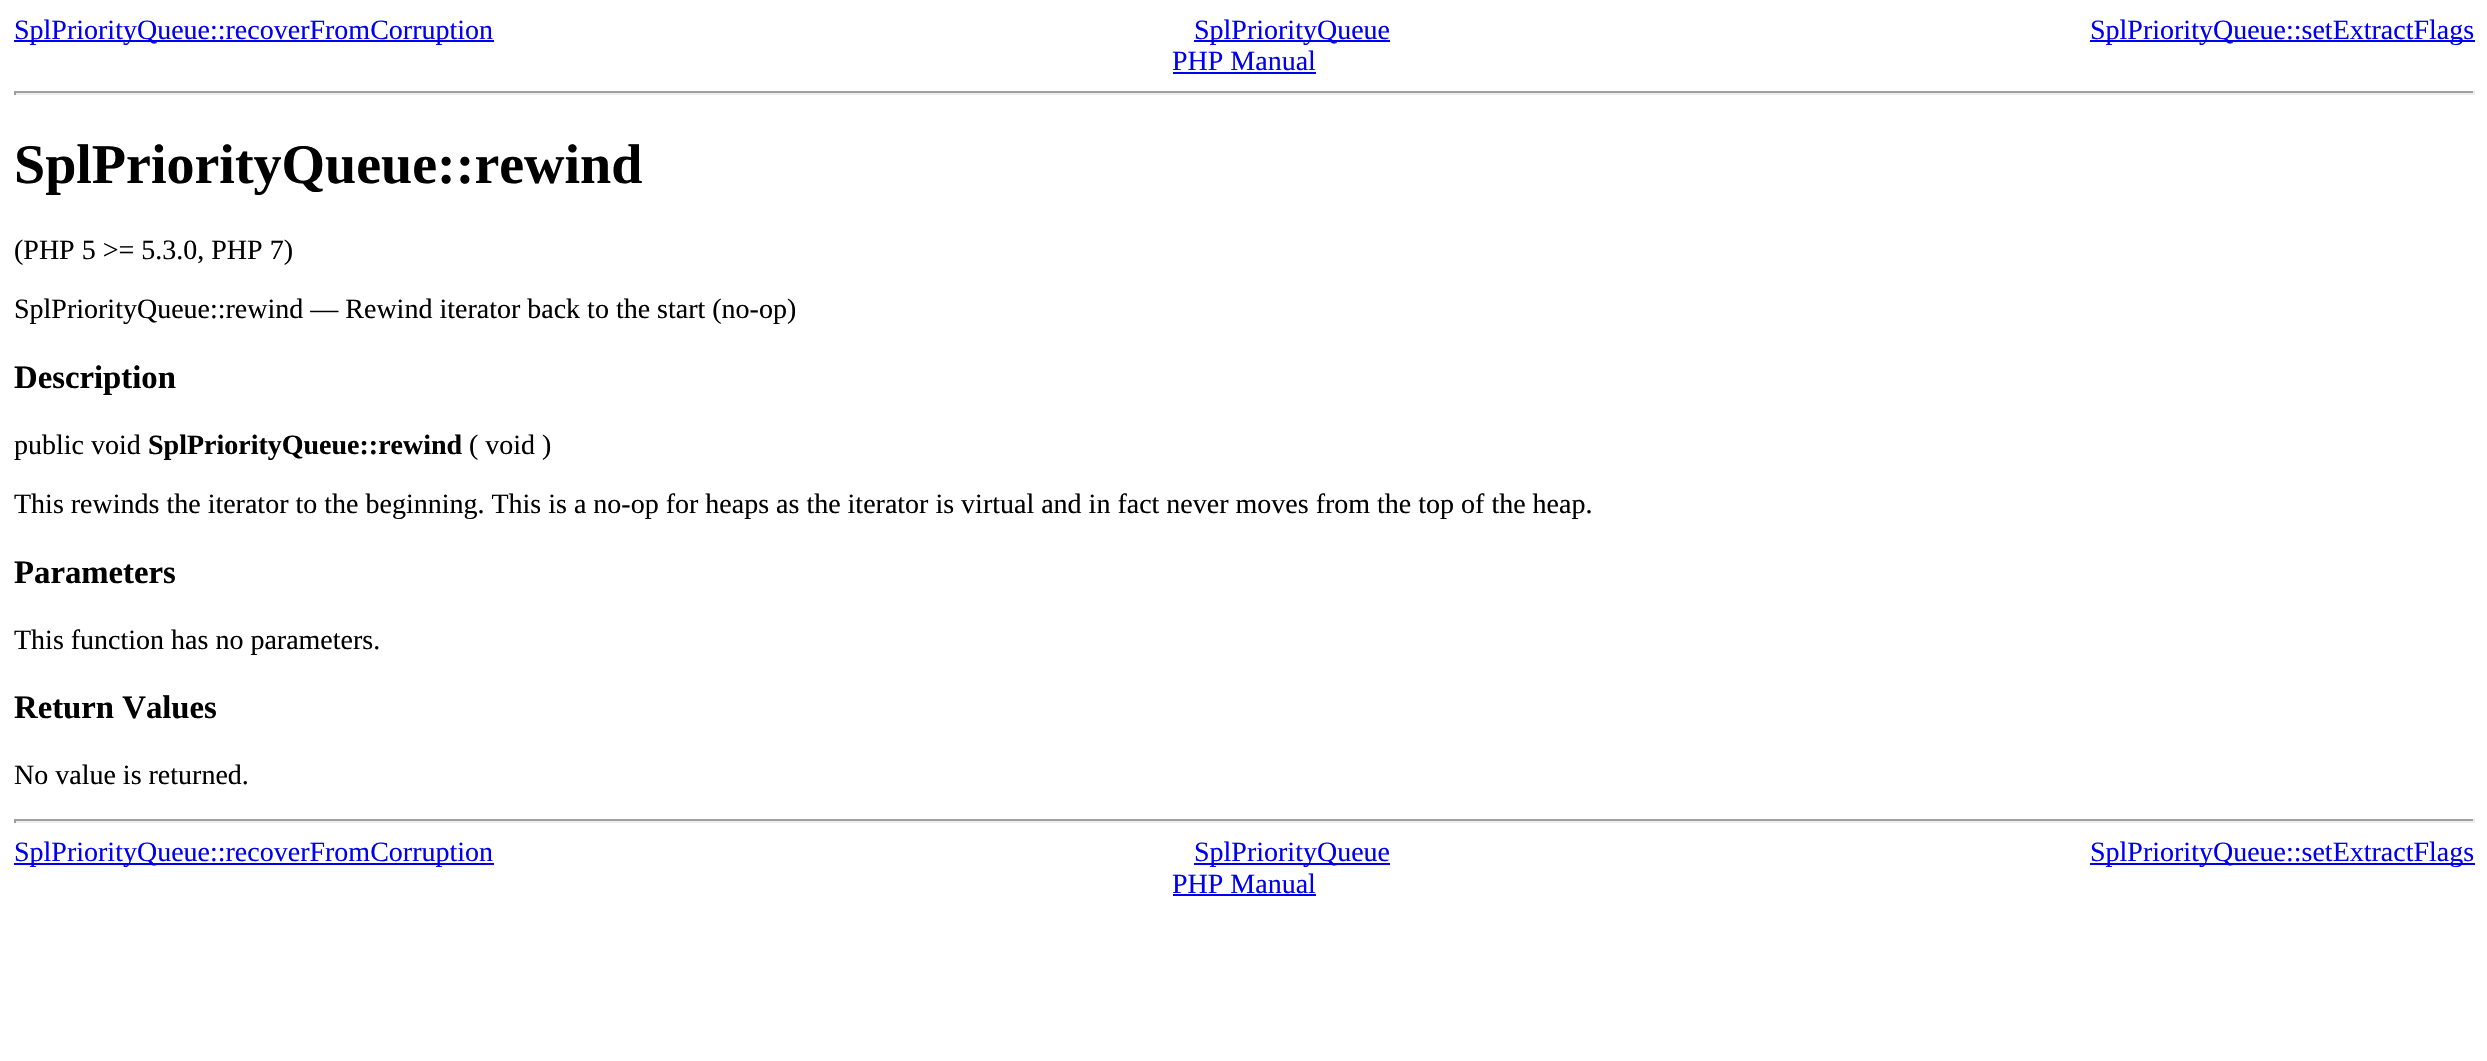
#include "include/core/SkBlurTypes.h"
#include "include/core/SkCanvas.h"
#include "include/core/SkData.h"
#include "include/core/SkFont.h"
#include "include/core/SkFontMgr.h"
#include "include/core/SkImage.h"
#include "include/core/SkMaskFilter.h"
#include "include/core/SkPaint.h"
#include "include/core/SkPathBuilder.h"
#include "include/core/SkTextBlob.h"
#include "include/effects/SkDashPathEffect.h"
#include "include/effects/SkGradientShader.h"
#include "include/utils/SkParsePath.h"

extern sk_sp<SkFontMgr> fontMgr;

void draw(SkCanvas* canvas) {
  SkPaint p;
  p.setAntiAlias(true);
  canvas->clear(SK_ColorWHITE);
  p.setColor(SkColorSetRGB(0, 0, 238));
  canvas->drawRect(SkRect::MakeLTRB(14, 40, 494, 42), p);
  canvas->drawRect(SkRect::MakeLTRB(1194, 40, 1390, 42), p);
  canvas->drawRect(SkRect::MakeLTRB(2090, 40, 2475, 42), p);
  canvas->drawRect(SkRect::MakeLTRB(1173, 72, 1316, 74), p);
  p.setColor(SkColorSetRGB(159, 159, 159));
  canvas->drawRect(SkRect::MakeLTRB(14, 91, 2475, 93), p);
  p.setColor(SkColorSetRGB(238, 238, 238));
  canvas->drawRect(SkRect::MakeLTRB(2473, 91, 2475, 95), p);
  canvas->drawRect(SkRect::MakeLTRB(14, 93, 2475, 95), p);
  p.setColor(SkColorSetRGB(159, 159, 159));
  canvas->drawRect(SkRect::MakeLTRB(14, 91, 16, 95), p);
  canvas->drawRect(SkRect::MakeLTRB(14, 819, 2475, 821), p);
  p.setColor(SkColorSetRGB(238, 238, 238));
  canvas->drawRect(SkRect::MakeLTRB(2473, 819, 2475, 823), p);
  canvas->drawRect(SkRect::MakeLTRB(14, 821, 2475, 823), p);
  p.setColor(SkColorSetRGB(159, 159, 159));
  canvas->drawRect(SkRect::MakeLTRB(14, 819, 16, 823), p);
  p.setColor(SkColorSetRGB(0, 0, 238));
  canvas->drawRect(SkRect::MakeLTRB(14, 863, 494, 865), p);
  canvas->drawRect(SkRect::MakeLTRB(1194, 863, 1390, 865), p);
  canvas->drawRect(SkRect::MakeLTRB(2090, 863, 2475, 865), p);
  canvas->drawRect(SkRect::MakeLTRB(1173, 894, 1316, 896), p);
  SkFont font1(fontMgr->matchFamilyStyle("Liberation Serif", SkFontStyle::Normal()), 28);
  font1.setSubpixel(true);
  canvas->drawString("SplPriorityQueue::recoverFromCorruption", 14, 39, font1, p);
  canvas->drawString("SplPriorityQueue", 1194, 39, font1, p);
  canvas->drawString("SplPriorityQueue::setExtractFlags", 2090, 39, font1, p);
  canvas->drawString("PHP Manual", 1172, 70, font1, p);
  SkFont font2(fontMgr->matchFamilyStyle("Liberation Serif", SkFontStyle::Bold()), 56);
  font2.setSubpixel(true);
  p.setColor(SK_ColorBLACK);
  canvas->drawString("SplPriorityQueue::rewind", 14, 183, font2, p);
  canvas->drawString("(PHP 5 >= 5.3.0, PHP 7)", 14, 259, font1, p);
  canvas->drawString("SplPriorityQueue::rewind — Rewind iterator back to the start (no-op)", 14, 318, font1, p);
  SkFont font3(fontMgr->matchFamilyStyle("Liberation Serif", SkFontStyle::Bold()), 32.75f);
  font3.setSubpixel(true);
  canvas->drawString("Description", 14, 388, font3, p);
  canvas->drawString("public void", 14, 454, font1, p);
  SkFont font4(fontMgr->matchFamilyStyle("Liberation Serif", SkFontStyle::Bold()), 28);
  font4.setSubpixel(true);
  canvas->drawString("SplPriorityQueue::rewind", 148, 454, font4, p);
  canvas->drawString("( void )", 469, 454, font1, p);
  canvas->drawString("This rewinds the iterator to the beginning. This is a no-op for heaps as the iterator is virtual and in fact never moves from the top of the heap.", 14, 513, font1, p);
  canvas->drawString("Parameters", 14, 583, font3, p);
  canvas->drawString("This function has no parameters.", 14, 649, font1, p);
  canvas->drawString("Return Values", 14, 718, font3, p);
  canvas->drawString("No value is returned.", 14, 784, font1, p);
  p.setColor(SkColorSetRGB(0, 0, 238));
  canvas->drawString("SplPriorityQueue::recoverFromCorruption", 14, 861, font1, p);
  canvas->drawString("SplPriorityQueue", 1194, 861, font1, p);
  canvas->drawString("SplPriorityQueue::setExtractFlags", 2090, 861, font1, p);
  canvas->drawString("PHP Manual", 1172, 893, font1, p);
}
